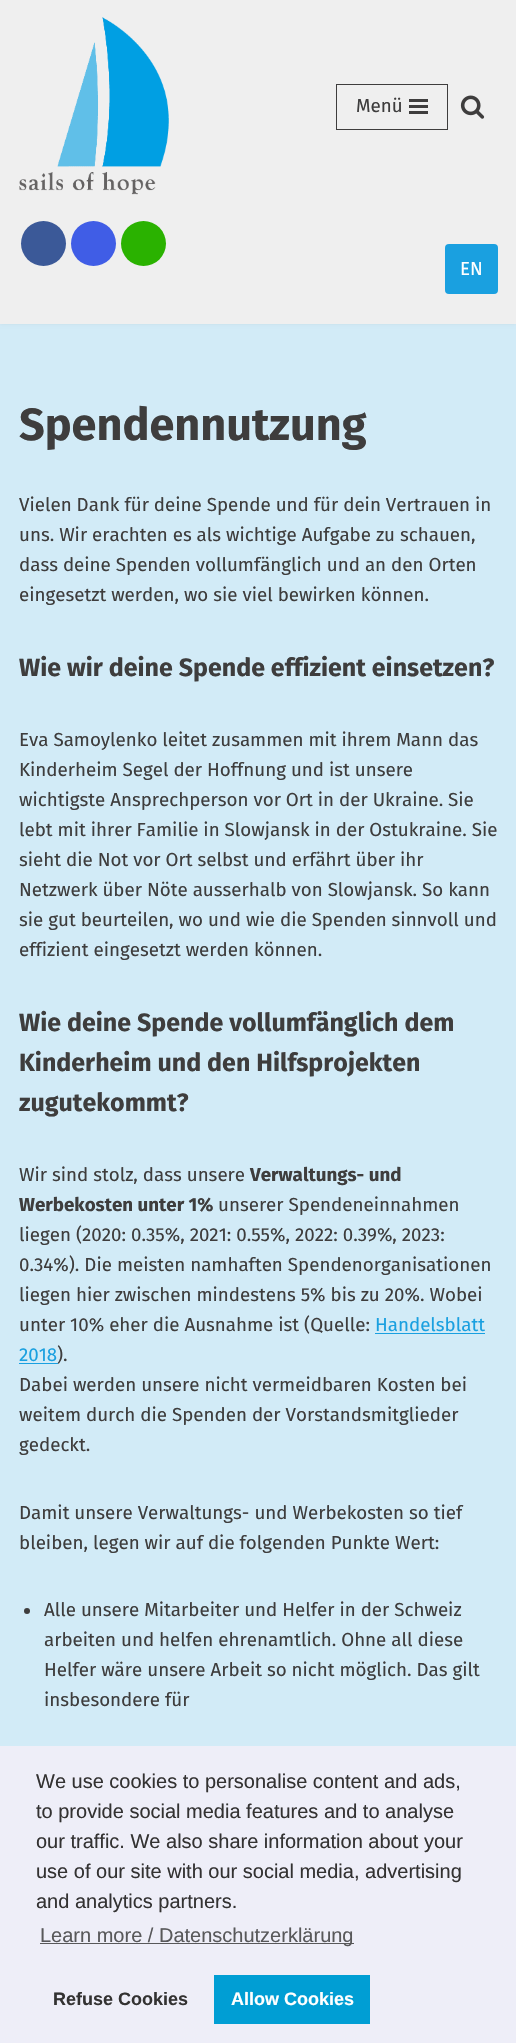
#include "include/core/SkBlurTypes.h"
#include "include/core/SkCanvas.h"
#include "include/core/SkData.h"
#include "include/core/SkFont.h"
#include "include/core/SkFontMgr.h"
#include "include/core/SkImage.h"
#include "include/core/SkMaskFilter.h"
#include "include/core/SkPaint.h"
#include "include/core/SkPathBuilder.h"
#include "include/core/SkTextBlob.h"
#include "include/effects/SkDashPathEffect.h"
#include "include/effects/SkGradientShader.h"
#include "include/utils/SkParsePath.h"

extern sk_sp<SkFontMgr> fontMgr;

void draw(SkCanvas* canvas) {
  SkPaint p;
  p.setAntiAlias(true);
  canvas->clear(SkColorSetRGB(210, 235, 247));
  p.setColor(SkColorSetARGB(26, 0, 0, 0));
  p.setMaskFilter(SkMaskFilter::MakeBlur(kNormal_SkBlurStyle, 2));
  canvas->drawRect(SkRect::MakeLTRB(0, -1, 516, 323), p);
  p.setMaskFilter(nullptr);
  p.setColor(SkColorSetRGB(239, 239, 239));
  canvas->drawRect(SkRect::MakeLTRB(0, 0, 516, 324), p);
  canvas->drawImageRect(SkImages::DeferredFromEncodedData(SkData::MakeFromFileName("images/1.png")), SkRect::MakeLTRB(19, 17, 169, 195), SkSamplingOptions());
  p.setStyle(SkPaint::kStroke_Style);
  p.setStrokeWidth(1);
  p.setColor(SkColorSetRGB(62, 61, 61));
  canvas->drawRect(SkRect::MakeLTRB(336.5f, 84.5f, 447.5f, 129.5f), p);
  p.setStyle(SkPaint::kFill_Style);
  canvas->drawRect(SkRect::MakeLTRB(409, 99, 428, 102), p);
  canvas->drawRect(SkRect::MakeLTRB(409, 105, 428, 108), p);
  canvas->drawRect(SkRect::MakeLTRB(409, 111, 428, 114), p);
  canvas->drawImageRect(SkImages::DeferredFromEncodedData(SkData::MakeFromFileName("images/2.png")), SkRect::MakeLTRB(460, 95, 485, 119), SkSamplingOptions());
  p.setColor(SkColorSetRGB(59, 89, 152));
  canvas->drawCircle(43.5f, 243.5f, 22.5f, p);
  p.setColor(SkColorSetRGB(64, 93, 230));
  canvas->drawCircle(93.5f, 243.5f, 22.5f, p);
  p.setColor(SkColorSetRGB(42, 178, 0));
  canvas->drawCircle(143.5f, 243.5f, 22.5f, p);
  p.setColor(SkColorSetRGB(26, 160, 224));
  canvas->drawRoundRect(SkRect::MakeLTRB(445, 244, 498, 294), 4, 4, p);
  canvas->drawRect(SkRect::MakeLTRB(375, 1333, 485, 1334), p);
  canvas->drawRect(SkRect::MakeLTRB(19, 1363, 58, 1364), p);
  p.setColor(SkColorSetRGB(62, 61, 61));
  canvas->drawCircle(27, 1611, 3, p);
  p.setColor(SkColorSetRGB(238, 238, 248));
  canvas->drawRect(SkRect::MakeLTRB(0, 1746, 516, 2043), p);
  p.setColor(SkColorSetRGB(88, 88, 90));
  canvas->drawRect(SkRect::MakeLTRB(40, 1943, 354, 1944), p);
  p.setColor(SkColorSetRGB(0, 158, 212));
  canvas->drawRect(SkRect::MakeLTRB(214, 1975, 370, 2024), p);
  SkFont font1(fontMgr->matchFamilyStyle("Fira Sans", SkFontStyle::Normal()), 18.75f);
  font1.setSubpixel(true);
  p.setColor(SkColorSetRGB(62, 61, 61));
  canvas->drawString("Menü", 356, 112, font1, p);
  p.setColor(SK_ColorWHITE);
  canvas->drawString("EN", 460, 275, font1, p);
  SkFont font2(fontMgr->matchFamilyStyle("Fira Sans", SkFontStyle::Bold()), 45);
  font2.setSubpixel(true);
  p.setColor(SkColorSetRGB(62, 61, 61));
  canvas->drawString("Spendennutzung", 19, 440, font2, p);
  canvas->drawString("Vielen Dank für deine Spende und für dein Vertrauen in", 19, 511, font1, p);
  canvas->drawString("uns. Wir erachten es als wichtige Aufgabe zu schauen,", 19, 541, font1, p);
  canvas->drawString("dass deine Spenden vollumfänglich und an den Orten", 19, 571, font1, p);
  canvas->drawString("eingesetzt werden, wo sie viel bewirken können.", 19, 601, font1, p);
  SkFont font3(fontMgr->matchFamilyStyle("Fira Sans", SkFontStyle::Bold()), 25);
  font3.setSubpixel(true);
  canvas->drawString("Wie wir deine Spende effizient einsetzen?", 19, 676, font3, p);
  canvas->drawString("Eva Samoylenko leitet zusammen mit ihrem Mann das", 19, 746, font1, p);
  canvas->drawString("Kinderheim Segel der Hoffnung und ist unsere", 19, 776, font1, p);
  canvas->drawString("wichtigste Ansprechperson vor Ort in der Ukraine. Sie", 19, 806, font1, p);
  canvas->drawString("lebt mit ihrer Familie in Slowjansk in der Ostukraine. Sie", 19, 836, font1, p);
  canvas->drawString("sieht die Not vor Ort selbst und erfährt über ihr", 19, 866, font1, p);
  canvas->drawString("Netzwerk über Nöte ausserhalb von Slowjansk. So kann", 19, 896, font1, p);
  canvas->drawString("sie gut beurteilen, wo und wie die Spenden sinnvoll und", 19, 926, font1, p);
  canvas->drawString("effizient eingesetzt werden können.", 19, 956, font1, p);
  canvas->drawString("Wie deine Spende vollumfänglich dem", 19, 1031, font3, p);
  canvas->drawString("Kinderheim und den Hilfsprojekten", 19, 1071, font3, p);
  canvas->drawString("zugutekommt?", 19, 1111, font3, p);
  canvas->drawString("Wir sind stolz, dass unsere", 19, 1181, font1, p);
  SkFont font4(fontMgr->matchFamilyStyle("Fira Sans", SkFontStyle::Bold()), 18.75f);
  font4.setSubpixel(true);
  canvas->drawString("Verwaltungs- und", 250, 1181, font4, p);
  canvas->drawString("Werbekosten unter 1%", 19, 1211, font4, p);
  canvas->drawString("unserer Spendeneinnahmen", 218, 1211, font1, p);
  canvas->drawString("liegen (2020: 0.35%, 2021: 0.55%, 2022: 0.39%, 2023:", 19, 1241, font1, p);
  canvas->drawString("0.34%). Die meisten namhaften Spendenorganisationen", 19, 1271, font1, p);
  canvas->drawString("liegen hier zwischen mindestens 5% bis zu 20%. Wobei", 19, 1301, font1, p);
  canvas->drawString("unter 10% eher die Ausnahme ist (Quelle:", 19, 1331, font1, p);
  p.setColor(SkColorSetRGB(26, 160, 224));
  canvas->drawString("Handelsblatt", 375, 1331, font1, p);
  canvas->drawString("2018", 19, 1361, font1, p);
  p.setColor(SkColorSetRGB(62, 61, 61));
  canvas->drawString(").", 57, 1361, font1, p);
  canvas->drawString("Dabei werden unsere nicht vermeidbaren Kosten bei", 19, 1391, font1, p);
  canvas->drawString("weitem durch die Spenden der Vorstandsmitglieder", 19, 1421, font1, p);
  canvas->drawString("gedeckt.", 19, 1451, font1, p);
  canvas->drawString("Damit unsere Verwaltungs- und Werbekosten so tief", 19, 1519, font1, p);
  canvas->drawString("bleiben, legen wir auf die folgenden Punkte Wert:", 19, 1549, font1, p);
  canvas->drawString("Alle unsere Mitarbeiter und Helfer in der Schweiz", 44, 1616, font1, p);
  canvas->drawString("arbeiten und helfen ehrenamtlich. Ohne all diese", 44, 1646, font1, p);
  canvas->drawString("Helfer wäre unsere Arbeit so nicht möglich. Das gilt", 44, 1676, font1, p);
  canvas->drawString("insbesondere für", 44, 1706, font1, p);
  SkFont font5(fontMgr->matchFamilyStyle("Liberation Sans", SkFontStyle::Normal()), 20);
  font5.setSubpixel(true);
  p.setColor(SkColorSetRGB(51, 50, 50));
  canvas->drawString("We use cookies to personalise content and ads,", 36, 1788, font5, p);
  canvas->drawString("to provide social media features and to analyse", 36, 1818, font5, p);
  canvas->drawString("our traffic. We also share information about your", 36, 1848, font5, p);
  canvas->drawString("use of our site with our social media, advertising", 36, 1878, font5, p);
  canvas->drawString("and analytics partners.", 36, 1908, font5, p);
  p.setColor(SkColorSetRGB(88, 88, 90));
  canvas->drawString("Learn more / Datenschutzerklärung", 40, 1942, font5, p);
  SkFont font6(fontMgr->matchFamilyStyle("Liberation Sans", SkFontStyle::Bold()), 18);
  font6.setSubpixel(true);
  p.setColor(SkColorSetRGB(51, 50, 50));
  canvas->drawString("Refuse Cookies", 53, 2005, font6, p);
  p.setColor(SK_ColorWHITE);
  canvas->drawString("Allow Cookies", 231, 2005, font6, p);
}
